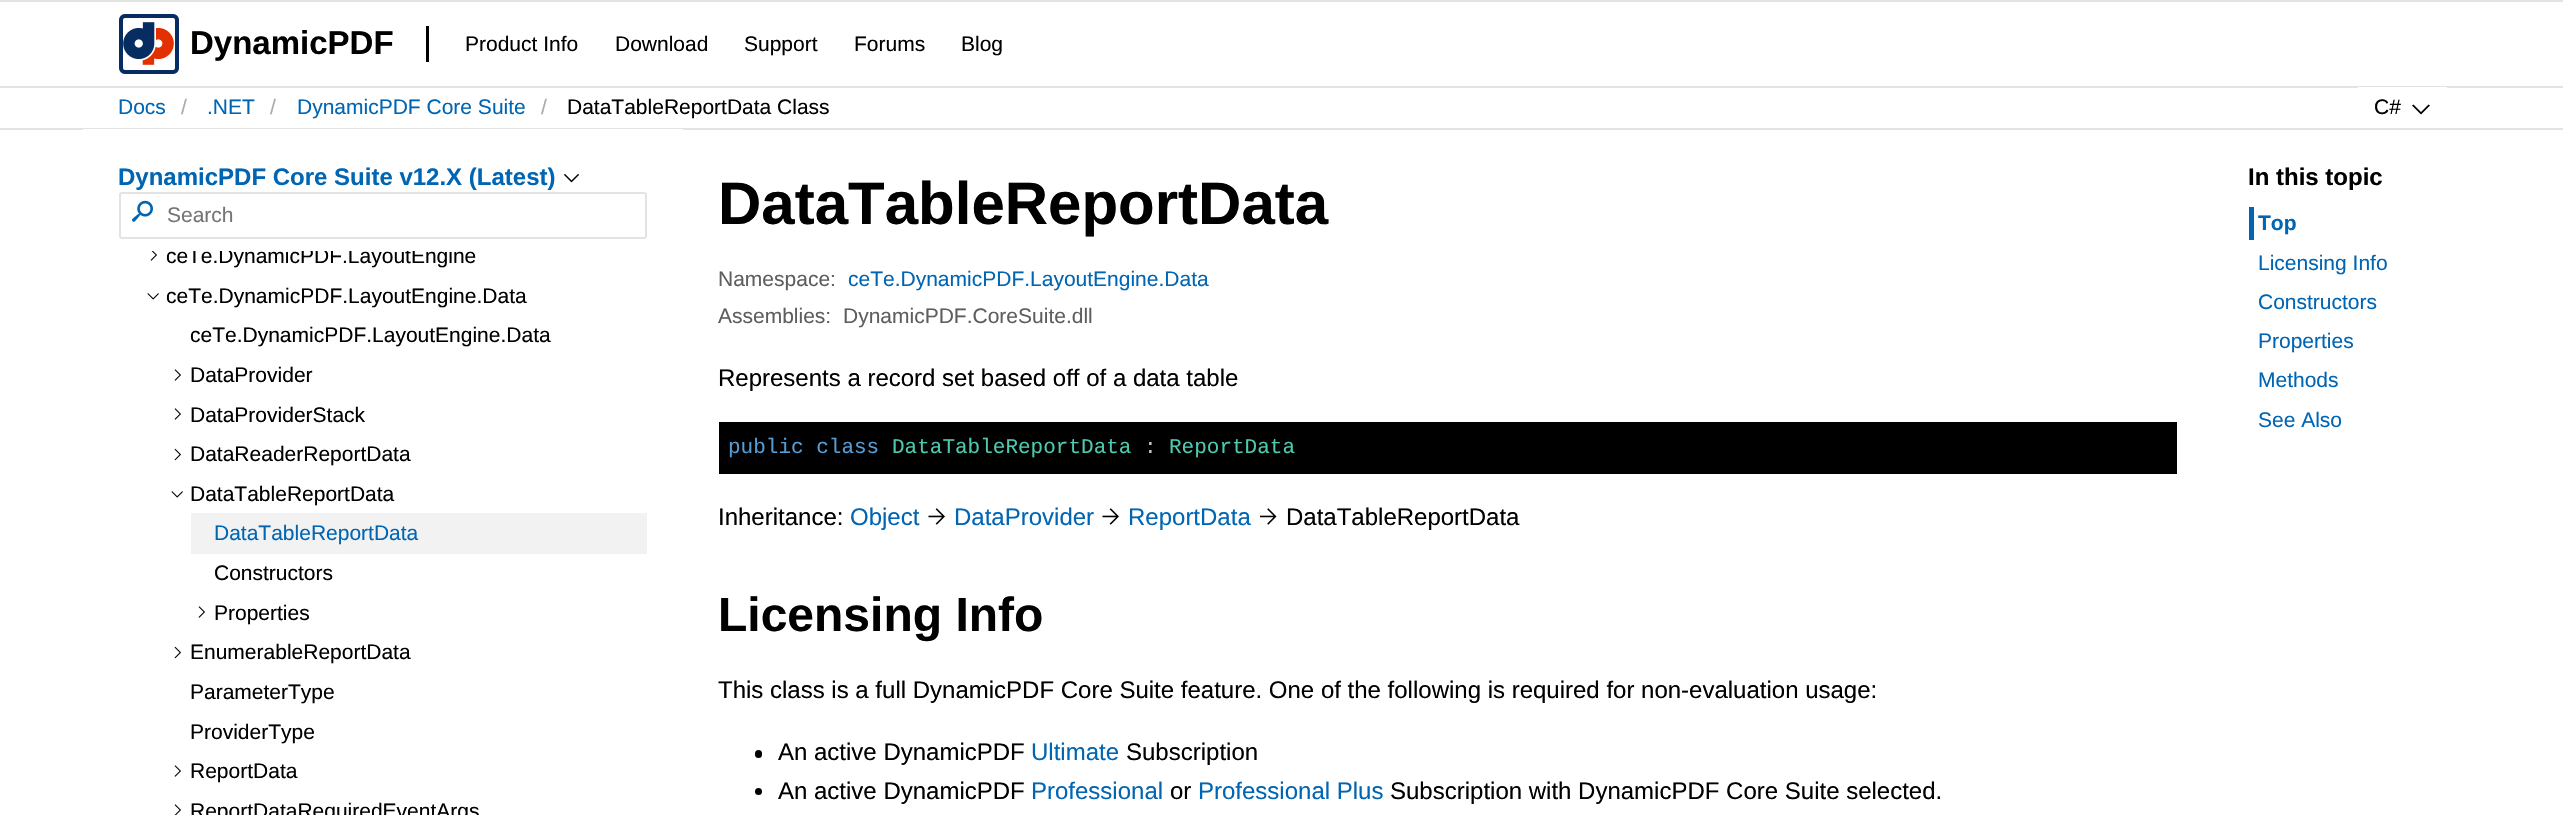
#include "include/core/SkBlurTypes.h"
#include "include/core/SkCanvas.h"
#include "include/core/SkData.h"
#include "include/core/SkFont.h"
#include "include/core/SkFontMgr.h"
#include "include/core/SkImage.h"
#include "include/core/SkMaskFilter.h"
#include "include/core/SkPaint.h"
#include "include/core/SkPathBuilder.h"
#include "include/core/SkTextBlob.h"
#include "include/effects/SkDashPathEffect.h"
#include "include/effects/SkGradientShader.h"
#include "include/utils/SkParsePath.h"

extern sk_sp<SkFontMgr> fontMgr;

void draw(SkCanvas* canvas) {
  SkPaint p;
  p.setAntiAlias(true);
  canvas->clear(SK_ColorWHITE);
  p.setColor(SkColorSetRGB(227, 227, 227));
  canvas->drawRect(SkRect::MakeLTRB(0, 128, 2563, 130), p);
  canvas->drawRect(SkRect::MakeLTRB(0, 0, 2563, 2), p);
  canvas->drawImageRect(SkImages::DeferredFromEncodedData(SkData::MakeFromFileName("images/1.png")), SkRect::MakeLTRB(119, 14, 179, 74), SkSamplingOptions());
  p.setColor(SK_ColorBLACK);
  canvas->drawRect(SkRect::MakeLTRB(426, 26, 429, 62), p);
  p.setColor(SkColorSetRGB(227, 227, 227));
  canvas->drawRect(SkRect::MakeLTRB(0, 86, 2563, 88), p);
  p.setColor(SK_ColorWHITE);
  canvas->drawRect(SkRect::MakeLTRB(2358, 87, 2447, 88), p);
  p.setColor(SK_ColorBLACK);
  canvas->drawPath(SkPathBuilder().moveTo(2430, 105.5f).lineTo(2421, 114.5f).lineTo(2412, 105.5f).lineTo(2413.5f, 104.5f).lineTo(2421, 112).lineTo(2428.5f, 104.5f).close().detach(), p);
  p.setColor(SK_ColorWHITE);
  canvas->drawRect(SkRect::MakeLTRB(83, 129, 683, 130), p);
  canvas->drawImageRect(SkImages::DeferredFromEncodedData(SkData::MakeFromFileName("images/2.png")), SkRect::MakeLTRB(564, 173, 579, 183), SkSamplingOptions());
  p.setStyle(SkPaint::kStroke_Style);
  p.setStrokeWidth(2);
  p.setColor(SkColorSetRGB(227, 227, 227));
  canvas->drawRoundRect(SkRect::MakeLTRB(120, 193, 646, 238), 2, 2, p);
  canvas->drawImageRect(SkImages::DeferredFromEncodedData(SkData::MakeFromFileName("images/3.png")), SkRect::MakeLTRB(132, 200, 153, 222), SkSamplingOptions());
  canvas->drawImageRect(SkImages::DeferredFromEncodedData(SkData::MakeFromFileName("images/4.png")), SkRect::MakeLTRB(150, 251, 157, 261), SkSamplingOptions());
  canvas->drawImageRect(SkImages::DeferredFromEncodedData(SkData::MakeFromFileName("images/5.png")), SkRect::MakeLTRB(147, 293, 159, 300), SkSamplingOptions());
  canvas->drawImageRect(SkImages::DeferredFromEncodedData(SkData::MakeFromFileName("images/6.png")), SkRect::MakeLTRB(174, 369, 181, 381), SkSamplingOptions());
  canvas->drawImageRect(SkImages::DeferredFromEncodedData(SkData::MakeFromFileName("images/6.png")), SkRect::MakeLTRB(174, 408, 181, 420), SkSamplingOptions());
  canvas->drawImageRect(SkImages::DeferredFromEncodedData(SkData::MakeFromFileName("images/7.png")), SkRect::MakeLTRB(174, 448, 181, 461), SkSamplingOptions());
  canvas->drawImageRect(SkImages::DeferredFromEncodedData(SkData::MakeFromFileName("images/8.png")), SkRect::MakeLTRB(171, 491, 183, 498), SkSamplingOptions());
  p.setStyle(SkPaint::kFill_Style);
  p.setColor(SkColorSetRGB(242, 242, 242));
  canvas->drawRect(SkRect::MakeLTRB(191, 513, 647, 554), p);
  canvas->drawImageRect(SkImages::DeferredFromEncodedData(SkData::MakeFromFileName("images/6.png")), SkRect::MakeLTRB(198, 606, 205, 618), SkSamplingOptions());
  canvas->drawImageRect(SkImages::DeferredFromEncodedData(SkData::MakeFromFileName("images/7.png")), SkRect::MakeLTRB(174, 646, 181, 659), SkSamplingOptions());
  canvas->drawImageRect(SkImages::DeferredFromEncodedData(SkData::MakeFromFileName("images/6.png")), SkRect::MakeLTRB(174, 765, 181, 777), SkSamplingOptions());
  canvas->drawImageRect(SkImages::DeferredFromEncodedData(SkData::MakeFromFileName("images/9.png")), SkRect::MakeLTRB(174, 804, 181, 815), SkSamplingOptions());
  p.setColor(SK_ColorBLACK);
  canvas->drawRect(SkRect::MakeLTRB(719, 422, 2177, 474), p);
  canvas->drawImageRect(SkImages::DeferredFromEncodedData(SkData::MakeFromFileName("images/10.png")), SkRect::MakeLTRB(928, 508, 945, 525), SkSamplingOptions());
  canvas->drawImageRect(SkImages::DeferredFromEncodedData(SkData::MakeFromFileName("images/10.png")), SkRect::MakeLTRB(1102, 508, 1119, 525), SkSamplingOptions());
  canvas->drawImageRect(SkImages::DeferredFromEncodedData(SkData::MakeFromFileName("images/11.png")), SkRect::MakeLTRB(1260, 508, 1277, 525), SkSamplingOptions());
  canvas->drawRoundRect(SkRect::MakeLTRB(755, 750, 762, 758), 3.5f, 3.5f, p);
  canvas->drawCircle(758.5f, 791.5f, 3.5f, p);
  p.setColor(SkColorSetRGB(0, 101, 179));
  canvas->drawRect(SkRect::MakeLTRB(2249, 207, 2254, 240), p);
  SkFont font1(fontMgr->matchFamilyStyle("Liberation Sans", SkFontStyle::Bold()), 33);
  font1.setSubpixel(true);
  p.setColor(SK_ColorBLACK);
  canvas->drawString("DynamicPDF", 190, 54, font1, p);
  SkFont font2(fontMgr->matchFamilyStyle("Liberation Sans", SkFontStyle::Normal()), 21);
  font2.setSubpixel(true);
  canvas->drawString("Product Info", 465, 51, font2, p);
  canvas->drawString("Download", 615, 51, font2, p);
  canvas->drawString("Support", 744, 51, font2, p);
  canvas->drawString("Forums", 854, 51, font2, p);
  canvas->drawString("Blog", 961, 51, font2, p);
  p.setColor(SkColorSetRGB(0, 101, 179));
  canvas->drawString("Docs", 118, 114, font2, p);
  p.setColor(SkColorSetRGB(171, 171, 171));
  canvas->drawString("/", 181, 114, font2, p);
  p.setColor(SkColorSetRGB(0, 101, 179));
  canvas->drawString(".NET", 207, 114, font2, p);
  p.setColor(SkColorSetRGB(171, 171, 171));
  canvas->drawString("/", 270, 114, font2, p);
  p.setColor(SkColorSetRGB(0, 101, 179));
  canvas->drawString("DynamicPDF Core Suite", 297, 114, font2, p);
  p.setColor(SkColorSetRGB(171, 171, 171));
  canvas->drawString("/", 541, 114, font2, p);
  p.setColor(SK_ColorBLACK);
  canvas->drawString("DataTableReportData Class", 567, 114, font2, p);
  canvas->drawString("C#", 2374, 114, font2, p);
  SkFont font3(fontMgr->matchFamilyStyle("Liberation Sans", SkFontStyle::Bold()), 24);
  font3.setSubpixel(true);
  p.setColor(SkColorSetRGB(0, 101, 179));
  canvas->drawString("DynamicPDF Core Suite v12.X (Latest)", 118, 185, font3, p);
  p.setColor(SkColorSetRGB(117, 117, 117));
  canvas->drawString("Search", 167, 222, font2, p);
  p.setColor(SK_ColorBLACK);
  canvas->drawString("ce", 166, 263, font2, p);
  canvas->save();
  canvas->clipRect(SkRect::MakeLTRB(119, 251, 647, 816));
  canvas->drawString("Te.DynamicPDF.LayoutEngine", 188, 263, font2, p);
  canvas->restore();
  canvas->drawString("ceTe.DynamicPDF.LayoutEngine.Data", 166, 303, font2, p);
  canvas->drawString("ceTe.DynamicPDF.LayoutEngine.Data", 190, 342, font2, p);
  canvas->drawString("DataProvider", 190, 382, font2, p);
  canvas->drawString("DataProviderStack", 190, 422, font2, p);
  canvas->drawString("DataReaderReportData", 190, 461, font2, p);
  canvas->drawString("DataTableReportData", 190, 501, font2, p);
  p.setColor(SkColorSetRGB(0, 101, 179));
  canvas->drawString("DataTableReportData", 214, 540, font2, p);
  p.setColor(SK_ColorBLACK);
  canvas->drawString("Constructors", 214, 580, font2, p);
  canvas->drawString("Properties", 214, 620, font2, p);
  canvas->drawString("EnumerableReportData", 190, 659, font2, p);
  canvas->drawString("ParameterType", 190, 699, font2, p);
  canvas->drawString("ProviderType", 190, 739, font2, p);
  canvas->drawString("ReportData", 190, 778, font2, p);
  canvas->drawString("ReportDataRequiredEventArgs", 190, 818, font2, p);
  SkFont font4(fontMgr->matchFamilyStyle("Liberation Sans", SkFontStyle::Bold()), 60);
  font4.setSubpixel(true);
  canvas->drawString("DataTableReportData", 718, 224, font4, p);
  p.setColor(SkColorSetRGB(94, 94, 94));
  canvas->drawString("Namespace:", 718, 286, font2, p);
  p.setColor(SkColorSetRGB(0, 101, 179));
  canvas->drawString("ceTe.DynamicPDF.LayoutEngine.Data", 848, 286, font2, p);
  p.setColor(SkColorSetRGB(94, 94, 94));
  canvas->drawString("Assemblies:", 718, 323, font2, p);
  canvas->drawString("DynamicPDF.CoreSuite.dll", 843, 323, font2, p);
  SkFont font5(fontMgr->matchFamilyStyle("Liberation Sans", SkFontStyle::Normal()), 24);
  font5.setSubpixel(true);
  p.setColor(SK_ColorBLACK);
  canvas->drawString("Represents a record set based off of a data table", 718, 386, font5, p);
  SkFont font6(fontMgr->matchFamilyStyle("Liberation Mono", SkFontStyle::Normal()), 21);
  font6.setSubpixel(true);
  p.setColor(SkColorSetRGB(86, 156, 214));
  canvas->drawString("public class", 728, 453, font6, p);
  p.setColor(SkColorSetRGB(78, 201, 176));
  canvas->drawString("DataTableReportData", 892, 453, font6, p);
  p.setColor(SkColorSetRGB(192, 192, 192));
  canvas->drawString(":", 1144, 453, font6, p);
  p.setColor(SkColorSetRGB(78, 201, 176));
  canvas->drawString("ReportData", 1169, 453, font6, p);
  p.setColor(SK_ColorBLACK);
  canvas->drawString("Inheritance:", 718, 525, font5, p);
  p.setColor(SkColorSetRGB(0, 101, 179));
  canvas->drawString("Object", 850, 525, font5, p);
  canvas->drawString("DataProvider", 954, 525, font5, p);
  canvas->drawString("ReportData", 1128, 525, font5, p);
  p.setColor(SK_ColorBLACK);
  canvas->drawString("DataTableReportData", 1286, 525, font5, p);
  SkFont font7(fontMgr->matchFamilyStyle("Liberation Sans", SkFontStyle::Bold()), 48);
  font7.setSubpixel(true);
  canvas->drawString("Licensing Info", 718, 631, font7, p);
  canvas->drawString("This class is a full DynamicPDF Core Suite feature. One of the following is required for non-evaluation usage:", 718, 698, font5, p);
  canvas->drawString("An active DynamicPDF", 778, 760, font5, p);
  p.setColor(SkColorSetRGB(0, 101, 179));
  canvas->drawString("Ultimate", 1031, 760, font5, p);
  p.setColor(SK_ColorBLACK);
  canvas->drawString("Subscription", 1126, 760, font5, p);
  canvas->drawString("An active DynamicPDF", 778, 799, font5, p);
  p.setColor(SkColorSetRGB(0, 101, 179));
  canvas->drawString("Professional", 1031, 799, font5, p);
  p.setColor(SK_ColorBLACK);
  canvas->drawString("or", 1170, 799, font5, p);
  p.setColor(SkColorSetRGB(0, 101, 179));
  canvas->drawString("Professional Plus", 1198, 799, font5, p);
  p.setColor(SK_ColorBLACK);
  canvas->drawString("Subscription with DynamicPDF Core Suite selected.", 1390, 799, font5, p);
  canvas->drawString("In this topic", 2248, 185, font3, p);
  SkFont font8(fontMgr->matchFamilyStyle("Liberation Sans", SkFontStyle::Bold()), 21);
  font8.setSubpixel(true);
  p.setColor(SkColorSetRGB(0, 101, 179));
  canvas->drawString("Top", 2258, 230, font8, p);
  canvas->drawString("Licensing Info", 2258, 270, font2, p);
  canvas->drawString("Constructors", 2258, 309, font2, p);
  canvas->drawString("Properties", 2258, 348, font2, p);
  canvas->drawString("Methods", 2258, 387, font2, p);
  canvas->drawString("See Also", 2258, 427, font2, p);
}
